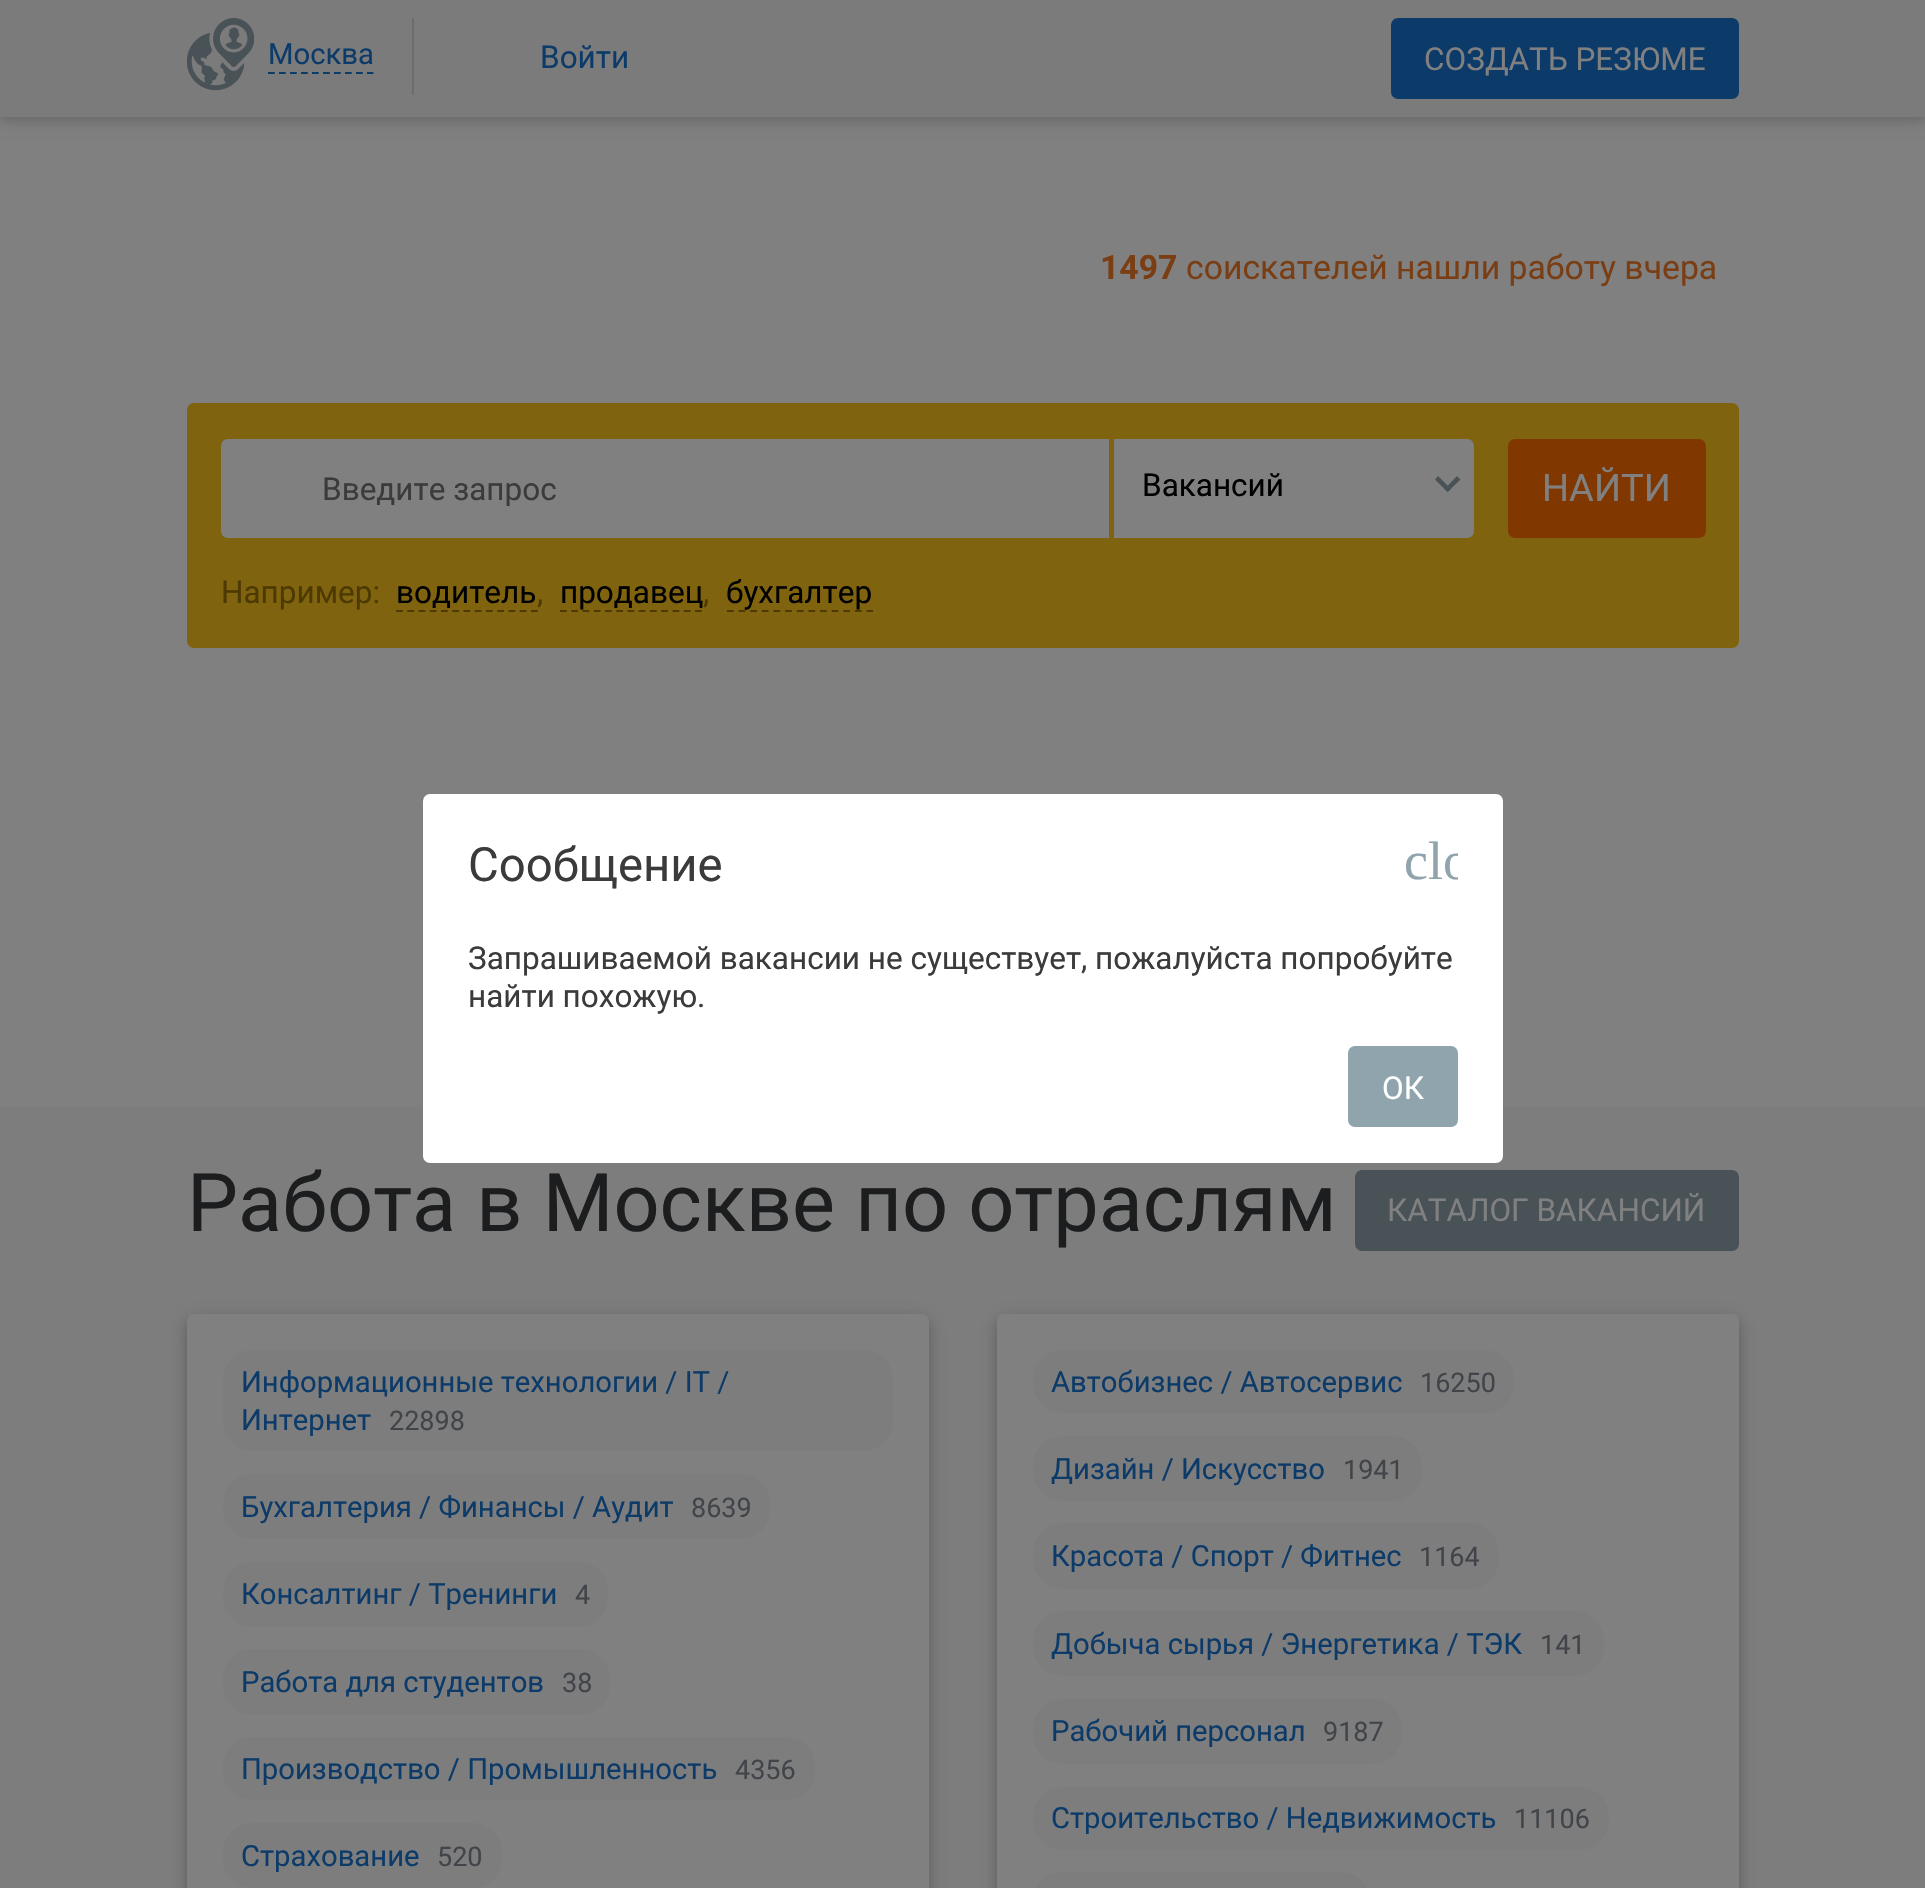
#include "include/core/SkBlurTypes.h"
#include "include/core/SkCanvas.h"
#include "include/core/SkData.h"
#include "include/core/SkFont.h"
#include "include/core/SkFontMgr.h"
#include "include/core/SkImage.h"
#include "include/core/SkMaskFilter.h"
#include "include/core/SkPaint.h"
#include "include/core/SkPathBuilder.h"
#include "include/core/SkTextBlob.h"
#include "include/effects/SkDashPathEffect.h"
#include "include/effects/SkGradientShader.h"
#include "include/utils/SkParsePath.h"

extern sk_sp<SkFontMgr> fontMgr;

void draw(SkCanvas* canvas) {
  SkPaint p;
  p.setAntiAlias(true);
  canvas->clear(SkColorSetRGB(125, 125, 125));
  p.setColor(SkColorSetRGB(128, 128, 128));
  canvas->drawRect(SkRect::MakeLTRB(0, 117, 1925, 1107), p);
  p.setColor(SkColorSetARGB(31, 0, 0, 0));
  p.setMaskFilter(SkMaskFilter::MakeBlur(kNormal_SkBlurStyle, 7));
  canvas->drawRect(SkRect::MakeLTRB(0, 2, 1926, 119), p);
  p.setMaskFilter(nullptr);
  p.setMaskFilter(SkMaskFilter::MakeBlur(kNormal_SkBlurStyle, 7));
  canvas->drawRect(SkRect::MakeLTRB(0, 2, 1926, 119), p);
  p.setMaskFilter(nullptr);
  p.setColor(SkColorSetRGB(123, 123, 123));
  canvas->drawRect(SkRect::MakeLTRB(0, 0, 1925, 117), p);
  canvas->drawImageRect(SkImages::DeferredFromEncodedData(SkData::MakeFromFileName("images/1.png")), SkRect::MakeLTRB(187, 18, 254, 91), SkSamplingOptions());
  p.setStyle(SkPaint::kStroke_Style);
  p.setStrokeWidth(2.2f);
  p.setColor(SkColorSetRGB(13, 59, 105));
  p.setPathEffect(SkDashPathEffect::Make({{6.75f, 4.25f}}, 0));
  canvas->drawPath(SkPathBuilder().moveTo(268, 73).lineTo(373.5f, 73).detach(), p);
  p.setPathEffect(nullptr);
  p.setStyle(SkPaint::kFill_Style);
  p.setColor(SkColorSetRGB(109, 109, 109));
  canvas->drawRect(SkRect::MakeLTRB(412, 18, 414, 95), p);
  p.setColor(SkColorSetRGB(13, 59, 105));
  canvas->drawRoundRect(SkRect::MakeLTRB(1392, 19, 1738, 98), 6, 6, p);
  p.setStyle(SkPaint::kStroke_Style);
  p.setStrokeWidth(2);
  canvas->drawRoundRect(SkRect::MakeLTRB(1392, 19, 1738, 98), 6, 6, p);
  p.setStyle(SkPaint::kFill_Style);
  p.setColor(SkColorSetRGB(128, 99, 14));
  canvas->drawRoundRect(SkRect::MakeLTRB(187, 403, 1739, 648), 7, 7, p);
  p.setColor(SkColorSetRGB(128, 128, 128));
  canvas->drawPath(SkPathBuilder().moveTo(228, 440).lineTo(1108, 440).lineTo(1108, 537).lineTo(228, 537).cubicTo(224.5f, 537, 222, 534.5f, 222, 531).lineTo(222, 446).cubicTo(222, 442.5f, 224.5f, 440, 228, 440).close().detach(), p);
  p.setStyle(SkPaint::kStroke_Style);
  canvas->drawPath(SkPathBuilder().moveTo(228, 440).lineTo(1108, 440).lineTo(1108, 537).lineTo(228, 537).cubicTo(224.5f, 537, 222, 534.5f, 222, 531).lineTo(222, 446).cubicTo(222, 442.5f, 224.5f, 440, 228, 440).close().detach(), p);
  p.setStyle(SkPaint::kFill_Style);
  canvas->drawPath(SkPathBuilder().moveTo(1115, 440).lineTo(1467, 440).cubicTo(1470.5f, 440, 1473, 442.5f, 1473, 446).lineTo(1473, 531).cubicTo(1473, 534.5f, 1470.5f, 537, 1467, 537).lineTo(1115, 537).close().detach(), p);
  p.setStyle(SkPaint::kStroke_Style);
  canvas->drawPath(SkPathBuilder().moveTo(1115, 440).lineTo(1467, 440).cubicTo(1470.5f, 440, 1473, 442.5f, 1473, 446).lineTo(1473, 531).cubicTo(1473, 534.5f, 1470.5f, 537, 1467, 537).lineTo(1115, 537).close().detach(), p);
  p.setStyle(SkPaint::kFill_Style);
  p.setColor(SkColorSetRGB(72, 82, 87));
  canvas->drawPath(SkPathBuilder().moveTo(1460.5f, 479.5f).lineTo(1447.5f, 492).lineTo(1444.5f, 489).lineTo(1457, 476).close().detach(), p);
  canvas->drawPath(SkPathBuilder().moveTo(1451, 489).lineTo(1447.5f, 492).lineTo(1435, 479.5f).lineTo(1438, 476).close().detach(), p);
  p.setColor(SkColorSetRGB(128, 56, 0));
  canvas->drawRoundRect(SkRect::MakeLTRB(1509, 440, 1705, 537), 6, 6, p);
  p.setStyle(SkPaint::kStroke_Style);
  canvas->drawRoundRect(SkRect::MakeLTRB(1509, 440, 1705, 537), 6, 6, p);
  p.setStrokeWidth(2.2f);
  p.setColor(SkColorSetRGB(77, 58, 2));
  p.setPathEffect(SkDashPathEffect::Make({{6.75f, 4.5f}}, 0));
  canvas->drawPath(SkPathBuilder().moveTo(396, 611).lineTo(538, 611).detach(), p);
  p.setPathEffect(nullptr);
  p.setPathEffect(SkDashPathEffect::Make({{6.75f, 4.5f}}, 0));
  canvas->drawPath(SkPathBuilder().moveTo(560, 611).lineTo(702, 611).detach(), p);
  p.setPathEffect(nullptr);
  p.setPathEffect(SkDashPathEffect::Make({{6.75f, 4.88f}}, 0));
  canvas->drawPath(SkPathBuilder().moveTo(727, 611).lineTo(873, 611).detach(), p);
  p.setPathEffect(nullptr);
  p.setStyle(SkPaint::kFill_Style);
  p.setColor(SkColorSetRGB(72, 82, 87));
  canvas->drawRoundRect(SkRect::MakeLTRB(1356, 1171, 1738, 1250), 6, 6, p);
  p.setStyle(SkPaint::kStroke_Style);
  p.setStrokeWidth(2);
  canvas->drawRoundRect(SkRect::MakeLTRB(1356, 1171, 1738, 1250), 6, 6, p);
  p.setStyle(SkPaint::kFill_Style);
  p.setColor(SkColorSetARGB(31, 0, 0, 0));
  p.setMaskFilter(SkMaskFilter::MakeBlur(kNormal_SkBlurStyle, 11));
  canvas->drawRoundRect(SkRect::MakeLTRB(187, 1319, 929, 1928), 7, 7, p);
  p.setMaskFilter(nullptr);
  p.setColor(SkColorSetARGB(41, 0, 0, 0));
  p.setMaskFilter(SkMaskFilter::MakeBlur(kNormal_SkBlurStyle, 5.5f));
  canvas->drawRoundRect(SkRect::MakeLTRB(187, 1319, 929, 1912), 7, 7, p);
  p.setMaskFilter(nullptr);
  p.setColor(SkColorSetRGB(128, 128, 128));
  canvas->drawPath(SkPathBuilder().moveTo(194, 1314).lineTo(922, 1314).cubicTo(926, 1314, 929, 1317, 929, 1321).lineTo(929, 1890).lineTo(187, 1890).lineTo(187, 1321).cubicTo(187, 1317, 190, 1314, 194, 1314).close().detach(), p);
  p.setColor(SkColorSetRGB(125, 125, 125));
  canvas->drawRoundRect(SkRect::MakeLTRB(223, 1350, 893, 1451), 29, 29, p);
  canvas->drawRoundRect(SkRect::MakeLTRB(223, 1474, 770, 1539), 29, 29, p);
  canvas->drawRoundRect(SkRect::MakeLTRB(223, 1562, 608, 1627), 29, 29, p);
  canvas->drawRoundRect(SkRect::MakeLTRB(223, 1649, 610, 1715), 29, 29, p);
  canvas->drawRoundRect(SkRect::MakeLTRB(223, 1737, 815, 1800), 29, 29, p);
  canvas->drawRoundRect(SkRect::MakeLTRB(223, 1823, 502, 1888), 29, 29, p);
  p.setColor(SkColorSetARGB(31, 0, 0, 0));
  p.setMaskFilter(SkMaskFilter::MakeBlur(kNormal_SkBlurStyle, 11));
  canvas->drawRoundRect(SkRect::MakeLTRB(997, 1319, 1739, 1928), 7, 7, p);
  p.setMaskFilter(nullptr);
  p.setColor(SkColorSetARGB(41, 0, 0, 0));
  p.setMaskFilter(SkMaskFilter::MakeBlur(kNormal_SkBlurStyle, 5.5f));
  canvas->drawRoundRect(SkRect::MakeLTRB(997, 1319, 1739, 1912), 7, 7, p);
  p.setMaskFilter(nullptr);
  p.setColor(SkColorSetRGB(128, 128, 128));
  canvas->drawPath(SkPathBuilder().moveTo(1004, 1314).lineTo(1732, 1314).cubicTo(1736, 1314, 1739, 1317, 1739, 1321).lineTo(1739, 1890).lineTo(997, 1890).lineTo(997, 1321).cubicTo(997, 1317, 1000, 1314, 1004, 1314).close().detach(), p);
  p.setColor(SkColorSetRGB(125, 125, 125));
  canvas->drawRoundRect(SkRect::MakeLTRB(1033, 1350, 1514, 1413), 29, 29, p);
  canvas->drawRoundRect(SkRect::MakeLTRB(1033, 1436, 1422, 1501), 29, 29, p);
  canvas->drawRoundRect(SkRect::MakeLTRB(1033, 1523, 1499, 1589), 29, 29, p);
  canvas->drawRoundRect(SkRect::MakeLTRB(1033, 1611, 1604, 1676), 29, 29, p);
  canvas->drawRoundRect(SkRect::MakeLTRB(1033, 1699, 1402, 1764), 29, 29, p);
  canvas->drawRoundRect(SkRect::MakeLTRB(1033, 1787, 1609, 1850), 29, 29, p);
  canvas->drawPath(SkPathBuilder().moveTo(1062, 1872).lineTo(1341, 1872).cubicTo(1357, 1872, 1370, 1885, 1370, 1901).lineTo(1370, 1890).lineTo(1033, 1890).lineTo(1033, 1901).cubicTo(1033, 1885, 1046, 1872, 1062, 1872).close().detach(), p);
  p.setColor(SK_ColorWHITE);
  canvas->drawRoundRect(SkRect::MakeLTRB(423, 794, 1503, 1163), 7, 7, p);
  p.setColor(SkColorSetRGB(144, 164, 174));
  canvas->drawRoundRect(SkRect::MakeLTRB(1349, 1047, 1457, 1126), 6, 6, p);
  p.setStyle(SkPaint::kStroke_Style);
  canvas->drawRoundRect(SkRect::MakeLTRB(1349, 1047, 1457, 1126), 6, 6, p);
  SkFont font1(fontMgr->matchFamilyStyle("Roboto", SkFontStyle::Normal()), 29.25f);
  font1.setSubpixel(true);
  p.setStyle(SkPaint::kFill_Style);
  p.setColor(SkColorSetRGB(13, 59, 105));
  canvas->drawString("Москва", 268, 64, font1, p);
  SkFont font2(fontMgr->matchFamilyStyle("Roboto", SkFontStyle::Normal()), 31.5f);
  font2.setSubpixel(true);
  canvas->drawString("Войти", 540, 68, font2, p);
  p.setColor(SkColorSetRGB(128, 128, 128));
  canvas->drawString("СОЗДАТЬ РЕЗЮМЕ", 1424, 70, font2, p);
  SkFont font3(fontMgr->matchFamilyStyle("Roboto", SkFontStyle::Bold()), 33.75f);
  font3.setSubpixel(true);
  p.setColor(SkColorSetRGB(122, 62, 21));
  canvas->drawString("1497", 1100, 279, font3, p);
  SkFont font4(fontMgr->matchFamilyStyle("Roboto", SkFontStyle::Normal()), 33.75f);
  font4.setSubpixel(true);
  canvas->drawString("соискателей нашли работу вчера", 1186, 279, font4, p);
  canvas->save();
  canvas->clipRect(SkRect::MakeLTRB(322, 470, 1080, 506));
  p.setColor(SkColorSetRGB(59, 59, 59));
  canvas->drawString("Введите запрос", 322, 500, font2, p);
  canvas->restore();
  p.setColor(SK_ColorBLACK);
  canvas->drawString("Вакансий", 1142, 496, font2, p);
  SkFont font5(fontMgr->matchFamilyStyle("Roboto", SkFontStyle::Normal()), 38);
  font5.setSubpixel(true);
  p.setColor(SkColorSetRGB(128, 128, 128));
  canvas->drawString("НАЙТИ", 1542, 501, font5, p);
  p.setColor(SkColorSetRGB(77, 58, 2));
  canvas->drawString("Например:", 221, 603, font2, p);
  p.setColor(SK_ColorBLACK);
  canvas->drawString("водитель", 396, 603, font2, p);
  p.setColor(SkColorSetRGB(77, 58, 2));
  canvas->drawString(",", 537, 603, font2, p);
  p.setColor(SK_ColorBLACK);
  canvas->drawString("продавец", 560, 603, font2, p);
  p.setColor(SkColorSetRGB(77, 58, 2));
  canvas->drawString(",", 703, 603, font2, p);
  p.setColor(SK_ColorBLACK);
  canvas->drawString("бухгалтер", 726, 603, font2, p);
  SkFont font6(fontMgr->matchFamilyStyle("Roboto", SkFontStyle::Normal()), 81);
  font6.setSubpixel(true);
  p.setColor(SkColorSetRGB(28, 29, 30));
  canvas->drawString("Работа в Москве по отраслям", 187, 1231, font6, p);
  p.setColor(SkColorSetRGB(128, 128, 128));
  canvas->drawString("КАТАЛОГ ВАКАНСИЙ", 1387, 1221, font2, p);
  p.setColor(SkColorSetRGB(13, 59, 105));
  canvas->drawString("Информационные технологии / IT /", 241, 1392, font1, p);
  canvas->drawString("Интернет", 241, 1430, font1, p);
  SkFont font7(fontMgr->matchFamilyStyle("Roboto", SkFontStyle::Normal()), 27);
  font7.setSubpixel(true);
  p.setColor(SkColorSetRGB(65, 69, 73));
  canvas->drawString("22898", 389, 1430, font7, p);
  p.setColor(SkColorSetRGB(13, 59, 105));
  canvas->drawString("Бухгалтерия / Финансы / Аудит", 241, 1517, font1, p);
  p.setColor(SkColorSetRGB(65, 69, 73));
  canvas->drawString("8639", 691, 1517, font7, p);
  p.setColor(SkColorSetRGB(13, 59, 105));
  canvas->drawString("Консалтинг / Тренинги", 241, 1604, font1, p);
  p.setColor(SkColorSetRGB(65, 69, 73));
  canvas->drawString("4", 575, 1604, font7, p);
  p.setColor(SkColorSetRGB(13, 59, 105));
  canvas->drawString("Работа для студентов", 241, 1692, font1, p);
  p.setColor(SkColorSetRGB(65, 69, 73));
  canvas->drawString("38", 562, 1692, font7, p);
  p.setColor(SkColorSetRGB(13, 59, 105));
  canvas->drawString("Производство / Промышленность", 241, 1779, font1, p);
  p.setColor(SkColorSetRGB(65, 69, 73));
  canvas->drawString("4356", 735, 1779, font7, p);
  p.setColor(SkColorSetRGB(13, 59, 105));
  canvas->drawString("Страхование", 241, 1866, font1, p);
  p.setColor(SkColorSetRGB(65, 69, 73));
  canvas->drawString("520", 437, 1866, font7, p);
  p.setColor(SkColorSetRGB(13, 59, 105));
  canvas->drawString("Автобизнес / Автосервис", 1051, 1392, font1, p);
  p.setColor(SkColorSetRGB(65, 69, 73));
  canvas->drawString("16250", 1420, 1392, font7, p);
  p.setColor(SkColorSetRGB(13, 59, 105));
  canvas->drawString("Дизайн / Искусство", 1051, 1479, font1, p);
  p.setColor(SkColorSetRGB(65, 69, 73));
  canvas->drawString("1941", 1343, 1479, font7, p);
  p.setColor(SkColorSetRGB(13, 59, 105));
  canvas->drawString("Красота / Спорт / Фитнес", 1051, 1566, font1, p);
  p.setColor(SkColorSetRGB(65, 69, 73));
  canvas->drawString("1164", 1419, 1566, font7, p);
  p.setColor(SkColorSetRGB(13, 59, 105));
  canvas->drawString("Добыча сырья / Энергетика / ТЭК", 1051, 1654, font1, p);
  p.setColor(SkColorSetRGB(65, 69, 73));
  canvas->drawString("141", 1540, 1654, font7, p);
  p.setColor(SkColorSetRGB(13, 59, 105));
  canvas->drawString("Рабочий персонал", 1051, 1741, font1, p);
  p.setColor(SkColorSetRGB(65, 69, 73));
  canvas->drawString("9187", 1323, 1741, font7, p);
  p.setColor(SkColorSetRGB(13, 59, 105));
  canvas->drawString("Строительство / Недвижимость", 1051, 1828, font1, p);
  p.setColor(SkColorSetRGB(65, 69, 73));
  canvas->drawString("11106", 1514, 1828, font7, p);
  SkFont font8(fontMgr->matchFamilyStyle("Roboto", SkFontStyle::Normal()), 47.25f);
  font8.setSubpixel(true);
  p.setColor(SkColorSetRGB(59, 59, 59));
  canvas->drawString("Сообщение", 468, 881, font8, p);
  canvas->save();
  canvas->clipRect(SkRect::MakeLTRB(1404, 835, 1458, 889));
  SkFont font9(fontMgr->matchFamilyStyle("Liberation Serif", SkFontStyle::Normal()), 54);
  font9.setSubpixel(true);
  p.setColor(SkColorSetRGB(144, 164, 174));
  canvas->drawString("clo", 1404, 879, font9, p);
  canvas->restore();
  p.setColor(SkColorSetRGB(59, 59, 59));
  canvas->drawString("Запрашиваемой вакансии не существует, пожалуйста попробуйте", 468, 969, font2, p);
  canvas->drawString("найти похожую.", 468, 1007, font2, p);
  p.setColor(SK_ColorWHITE);
  canvas->drawString("ОК", 1382, 1099, font2, p);
}
